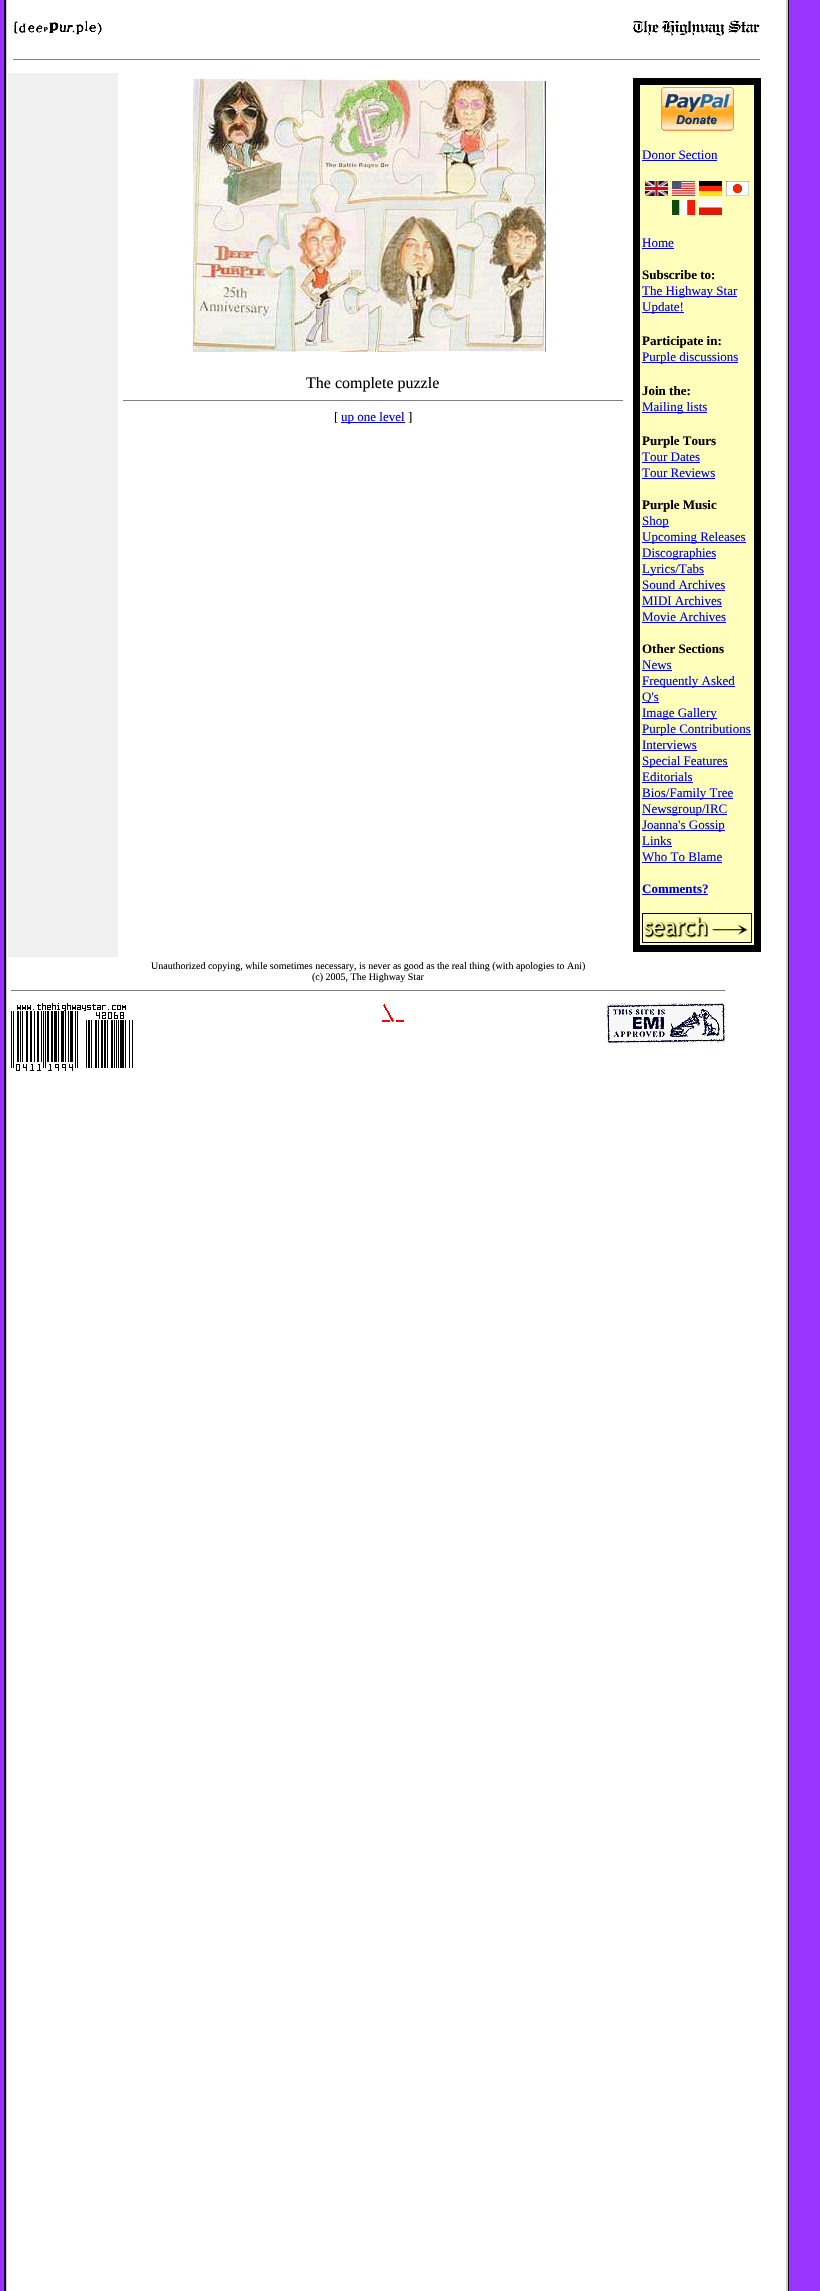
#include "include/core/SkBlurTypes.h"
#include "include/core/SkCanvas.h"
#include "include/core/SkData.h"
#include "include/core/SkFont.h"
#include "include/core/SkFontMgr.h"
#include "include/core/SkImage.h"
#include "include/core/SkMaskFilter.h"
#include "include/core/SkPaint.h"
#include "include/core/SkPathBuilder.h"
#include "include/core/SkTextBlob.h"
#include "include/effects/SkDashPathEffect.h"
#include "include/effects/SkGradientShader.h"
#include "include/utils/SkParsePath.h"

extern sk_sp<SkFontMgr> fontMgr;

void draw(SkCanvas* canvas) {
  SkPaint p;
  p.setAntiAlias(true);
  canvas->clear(SK_ColorWHITE);
  canvas->drawImageRect(SkImages::DeferredFromEncodedData(SkData::MakeFromFileName("images/1.png")), SkRect::MakeLTRB(0, 0, 820, 2291), SkSamplingOptions());
  canvas->drawImageRect(SkImages::DeferredFromEncodedData(SkData::MakeFromFileName("images/2.png")), SkRect::MakeLTRB(14, 21, 102, 35), SkSamplingOptions());
  canvas->drawImageRect(SkImages::DeferredFromEncodedData(SkData::MakeFromFileName("images/3.png")), SkRect::MakeLTRB(633, 20, 760, 36), SkSamplingOptions());
  p.setColor(SkColorSetRGB(128, 128, 128));
  canvas->drawRect(SkRect::MakeLTRB(13, 59, 760, 60), p);
  p.setColor(SkColorSetRGB(240, 240, 240));
  canvas->drawRect(SkRect::MakeLTRB(8, 73, 118, 957), p);
  canvas->drawImageRect(SkImages::DeferredFromEncodedData(SkData::MakeFromFileName("images/4.png")), SkRect::MakeLTRB(193, 79, 546, 352), SkSamplingOptions());
  p.setColor(SkColorSetRGB(128, 128, 128));
  canvas->drawRect(SkRect::MakeLTRB(123, 400, 623, 401), p);
  p.setColor(SkColorSetRGB(0, 0, 238));
  canvas->drawRect(SkRect::MakeLTRB(341, 422, 405, 423), p);
  p.setColor(SK_ColorBLACK);
  canvas->drawRect(SkRect::MakeLTRB(633, 78, 761, 952), p);
  p.setColor(SkColorSetRGB(255, 255, 187));
  canvas->drawRect(SkRect::MakeLTRB(640, 85, 754, 945), p);
  canvas->drawImageRect(SkImages::DeferredFromEncodedData(SkData::MakeFromFileName("images/5.png")), SkRect::MakeLTRB(661, 87, 734, 131), SkSamplingOptions());
  p.setColor(SkColorSetRGB(0, 0, 238));
  canvas->drawRect(SkRect::MakeLTRB(642, 160, 717, 161), p);
  canvas->drawImageRect(SkImages::DeferredFromEncodedData(SkData::MakeFromFileName("images/6.png")), SkRect::MakeLTRB(645, 181, 668, 196), SkSamplingOptions());
  canvas->drawImageRect(SkImages::DeferredFromEncodedData(SkData::MakeFromFileName("images/7.png")), SkRect::MakeLTRB(672, 181, 695, 196), SkSamplingOptions());
  canvas->drawImageRect(SkImages::DeferredFromEncodedData(SkData::MakeFromFileName("images/8.png")), SkRect::MakeLTRB(699, 181, 722, 196), SkSamplingOptions());
  canvas->drawImageRect(SkImages::DeferredFromEncodedData(SkData::MakeFromFileName("images/9.png")), SkRect::MakeLTRB(726, 181, 749, 196), SkSamplingOptions());
  canvas->drawImageRect(SkImages::DeferredFromEncodedData(SkData::MakeFromFileName("images/10.png")), SkRect::MakeLTRB(672, 200, 695, 215), SkSamplingOptions());
  canvas->drawImageRect(SkImages::DeferredFromEncodedData(SkData::MakeFromFileName("images/11.png")), SkRect::MakeLTRB(699, 200, 722, 215), SkSamplingOptions());
  canvas->drawRect(SkRect::MakeLTRB(642, 248, 674, 249), p);
  canvas->drawRect(SkRect::MakeLTRB(642, 296, 737, 297), p);
  canvas->drawRect(SkRect::MakeLTRB(642, 312, 684, 313), p);
  canvas->drawRect(SkRect::MakeLTRB(642, 362, 738, 363), p);
  canvas->drawRect(SkRect::MakeLTRB(642, 412, 707, 413), p);
  canvas->drawRect(SkRect::MakeLTRB(642, 462, 700, 463), p);
  canvas->drawRect(SkRect::MakeLTRB(642, 478, 715, 479), p);
  canvas->drawRect(SkRect::MakeLTRB(642, 526, 669, 527), p);
  canvas->drawRect(SkRect::MakeLTRB(642, 542, 746, 543), p);
  canvas->drawRect(SkRect::MakeLTRB(642, 558, 716, 559), p);
  canvas->drawRect(SkRect::MakeLTRB(642, 574, 704, 575), p);
  canvas->drawRect(SkRect::MakeLTRB(642, 590, 725, 591), p);
  canvas->drawRect(SkRect::MakeLTRB(642, 606, 722, 607), p);
  canvas->drawRect(SkRect::MakeLTRB(642, 622, 726, 623), p);
  canvas->drawRect(SkRect::MakeLTRB(642, 670, 672, 671), p);
  canvas->drawRect(SkRect::MakeLTRB(642, 686, 735, 687), p);
  canvas->drawRect(SkRect::MakeLTRB(642, 702, 659, 703), p);
  canvas->drawRect(SkRect::MakeLTRB(642, 718, 717, 719), p);
  canvas->drawRect(SkRect::MakeLTRB(642, 734, 751, 735), p);
  canvas->drawRect(SkRect::MakeLTRB(642, 750, 697, 751), p);
  canvas->drawRect(SkRect::MakeLTRB(642, 766, 728, 767), p);
  canvas->drawRect(SkRect::MakeLTRB(642, 782, 693, 783), p);
  canvas->drawRect(SkRect::MakeLTRB(642, 798, 733, 799), p);
  canvas->drawRect(SkRect::MakeLTRB(642, 814, 727, 815), p);
  canvas->drawRect(SkRect::MakeLTRB(642, 830, 725, 831), p);
  canvas->drawRect(SkRect::MakeLTRB(642, 846, 672, 847), p);
  canvas->drawRect(SkRect::MakeLTRB(642, 862, 722, 863), p);
  canvas->drawRect(SkRect::MakeLTRB(642, 894, 708, 895), p);
  canvas->drawImageRect(SkImages::DeferredFromEncodedData(SkData::MakeFromFileName("images/12.png")), SkRect::MakeLTRB(642, 913, 752, 943), SkSamplingOptions());
  p.setColor(SkColorSetRGB(128, 128, 128));
  canvas->drawRect(SkRect::MakeLTRB(11, 990, 725, 991), p);
  canvas->drawImageRect(SkImages::DeferredFromEncodedData(SkData::MakeFromFileName("images/13.png")), SkRect::MakeLTRB(11, 1003, 133, 1071), SkSamplingOptions());
  canvas->drawImageRect(SkImages::DeferredFromEncodedData(SkData::MakeFromFileName("images/14.png")), SkRect::MakeLTRB(382, 1004, 404, 1022), SkSamplingOptions());
  canvas->drawImageRect(SkImages::DeferredFromEncodedData(SkData::MakeFromFileName("images/15.png")), SkRect::MakeLTRB(607, 1003, 725, 1043), SkSamplingOptions());
  SkFont font1(fontMgr->matchFamilyStyle("Liberation Serif", SkFontStyle::Normal()), 16);
  font1.setSubpixel(true);
  p.setColor(SK_ColorBLACK);
  canvas->drawString("The complete puzzle", 306, 388, font1, p);
  SkFont font2(fontMgr->matchFamilyStyle("Liberation Serif", SkFontStyle::Normal()), 13);
  font2.setSubpixel(true);
  canvas->drawString("[", 334, 421, font2, p);
  p.setColor(SkColorSetRGB(0, 0, 238));
  canvas->drawString("up one level", 341, 421, font2, p);
  p.setColor(SK_ColorBLACK);
  canvas->drawString("]", 408, 421, font2, p);
  p.setColor(SkColorSetRGB(0, 0, 238));
  canvas->drawString("Donor Section", 642, 159, font2, p);
  canvas->drawString("Home", 642, 247, font2, p);
  SkFont font3(fontMgr->matchFamilyStyle("Liberation Serif", SkFontStyle::Bold()), 13);
  font3.setSubpixel(true);
  p.setColor(SK_ColorBLACK);
  canvas->drawString("Subscribe to:", 642, 279, font3, p);
  p.setColor(SkColorSetRGB(0, 0, 238));
  canvas->drawString("The Highway Star", 642, 295, font2, p);
  canvas->drawString("Update!", 642, 311, font2, p);
  p.setColor(SK_ColorBLACK);
  canvas->drawString("Participate in:", 642, 345, font3, p);
  p.setColor(SkColorSetRGB(0, 0, 238));
  canvas->drawString("Purple discussions", 642, 361, font2, p);
  p.setColor(SK_ColorBLACK);
  canvas->drawString("Join the:", 642, 395, font3, p);
  p.setColor(SkColorSetRGB(0, 0, 238));
  canvas->drawString("Mailing lists", 642, 411, font2, p);
  p.setColor(SK_ColorBLACK);
  canvas->drawString("Purple Tours", 642, 445, font3, p);
  p.setColor(SkColorSetRGB(0, 0, 238));
  canvas->drawString("Tour Dates", 642, 461, font2, p);
  canvas->drawString("Tour Reviews", 642, 477, font2, p);
  p.setColor(SK_ColorBLACK);
  canvas->drawString("Purple Music", 642, 509, font3, p);
  p.setColor(SkColorSetRGB(0, 0, 238));
  canvas->drawString("Shop", 642, 525, font2, p);
  canvas->drawString("Upcoming Releases", 642, 541, font2, p);
  canvas->drawString("Discographies", 642, 557, font2, p);
  canvas->drawString("Lyrics/Tabs", 642, 573, font2, p);
  canvas->drawString("Sound Archives", 642, 589, font2, p);
  canvas->drawString("MIDI Archives", 642, 605, font2, p);
  canvas->drawString("Movie Archives", 642, 621, font2, p);
  p.setColor(SK_ColorBLACK);
  canvas->drawString("Other Sections", 642, 653, font3, p);
  p.setColor(SkColorSetRGB(0, 0, 238));
  canvas->drawString("News", 642, 669, font2, p);
  canvas->drawString("Frequently Asked", 642, 685, font2, p);
  canvas->drawString("Q's", 642, 701, font2, p);
  canvas->drawString("Image Gallery", 642, 717, font2, p);
  canvas->drawString("Purple Contributions", 642, 733, font2, p);
  canvas->drawString("Interviews", 642, 749, font2, p);
  canvas->drawString("Special Features", 642, 765, font2, p);
  canvas->drawString("Editorials", 642, 781, font2, p);
  canvas->drawString("Bios/Family Tree", 642, 797, font2, p);
  canvas->drawString("Newsgroup/IRC", 642, 813, font2, p);
  canvas->drawString("Joanna's Gossip", 642, 829, font2, p);
  canvas->drawString("Links", 642, 845, font2, p);
  canvas->drawString("Who To Blame", 642, 861, font2, p);
  canvas->drawString("Comments?", 642, 893, font3, p);
  SkFont font4(fontMgr->matchFamilyStyle("Liberation Serif", SkFontStyle::Normal()), 10);
  font4.setSubpixel(true);
  p.setColor(SK_ColorBLACK);
  canvas->drawString("Unauthorized copying, while sometimes necessary, is never as good as the real thing (with apologies to Ani)", 151, 969, font4, p);
  canvas->drawString("(c) 2005, The Highway Star", 312, 980, font4, p);
}
